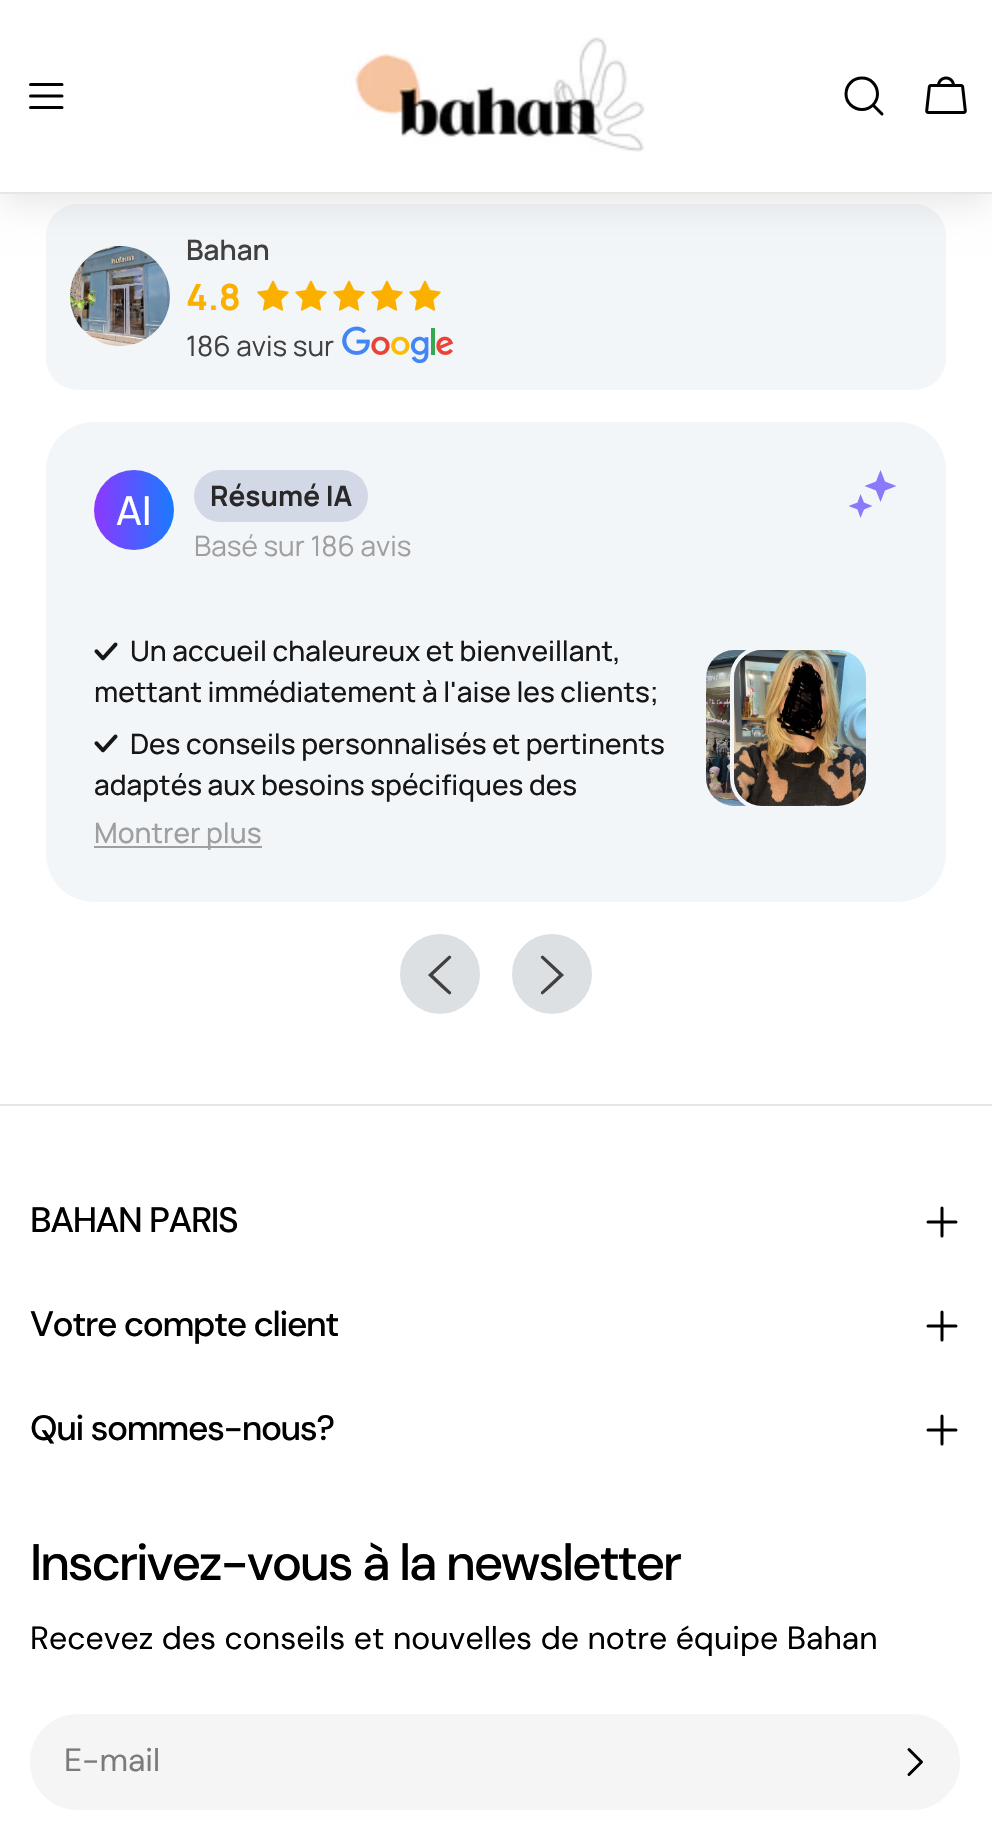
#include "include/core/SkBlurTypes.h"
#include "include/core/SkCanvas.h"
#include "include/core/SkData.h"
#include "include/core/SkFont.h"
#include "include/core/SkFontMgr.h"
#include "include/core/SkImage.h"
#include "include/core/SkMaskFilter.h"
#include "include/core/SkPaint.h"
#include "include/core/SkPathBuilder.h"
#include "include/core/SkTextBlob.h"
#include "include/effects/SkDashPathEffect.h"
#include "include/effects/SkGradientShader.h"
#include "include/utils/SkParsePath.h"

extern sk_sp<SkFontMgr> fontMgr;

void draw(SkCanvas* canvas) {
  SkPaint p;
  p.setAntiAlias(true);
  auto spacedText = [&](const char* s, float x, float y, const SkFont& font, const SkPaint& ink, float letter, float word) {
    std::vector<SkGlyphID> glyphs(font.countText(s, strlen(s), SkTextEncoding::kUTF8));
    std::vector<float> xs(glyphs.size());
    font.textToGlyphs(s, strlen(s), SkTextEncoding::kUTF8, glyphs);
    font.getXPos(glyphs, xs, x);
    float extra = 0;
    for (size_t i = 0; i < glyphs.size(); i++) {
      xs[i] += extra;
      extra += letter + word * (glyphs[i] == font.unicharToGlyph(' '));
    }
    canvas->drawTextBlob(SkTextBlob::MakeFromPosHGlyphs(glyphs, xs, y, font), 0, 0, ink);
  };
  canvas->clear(SK_ColorWHITE);
  p.setColor(SkColorSetRGB(243, 246, 249));
  canvas->drawRoundRect(SkRect::MakeLTRB(46, 204, 946, 390), 32, 32, p);
  canvas->drawImageRect(SkImages::DeferredFromEncodedData(SkData::MakeFromFileName("images/3.png")), SkRect::MakeLTRB(70, 246, 170, 346), SkSamplingOptions());
  p.setColor(SkColorSetARGB(26, 0, 0, 0));
  p.setMaskFilter(SkMaskFilter::MakeBlur(kNormal_SkBlurStyle, 18));
  canvas->drawRect(SkRect::MakeLTRB(0, 8, 992, 202), p);
  p.setMaskFilter(nullptr);
  p.setColor(SkColorSetRGB(230, 230, 230));
  canvas->drawRect(SkRect::MakeLTRB(0, 192, 992, 194), p);
  p.setColor(SK_ColorWHITE);
  canvas->drawRect(SkRect::MakeLTRB(0, 0, 992, 192), p);
  p.setStyle(SkPaint::kStroke_Style);
  p.setStrokeWidth(3);
  p.setStrokeCap(SkPaint::kRound_Cap);
  p.setStrokeJoin(SkPaint::kRound_Join);
  p.setColor(SK_ColorBLACK);
  canvas->drawPath(SkPathBuilder().moveTo(30.5f, 96).lineTo(62, 96).moveTo(30.5f, 84.5f).lineTo(62, 84.5f).moveTo(30.5f, 107.5f).lineTo(62, 107.5f).detach(), p);
  canvas->drawImageRect(SkImages::DeferredFromEncodedData(SkData::MakeFromFileName("images/1.png")), SkRect::MakeLTRB(343, 37, 645, 152), SkSamplingOptions());
  canvas->drawPath(SkPathBuilder().moveTo(862, 109.5f).cubicTo(870.5f, 109.5f, 877.5f, 102.5f, 877.5f, 94).cubicTo(877.5f, 85, 870.5f, 78, 862, 78).cubicTo(853, 78, 846, 85, 846, 94).cubicTo(846, 102.5f, 853, 109.5f, 862, 109.5f).close().moveTo(873, 105).lineTo(882, 114).detach(), p);
  canvas->drawImageRect(SkImages::DeferredFromEncodedData(SkData::MakeFromFileName("images/2.png")), SkRect::MakeLTRB(925, 76, 967, 114), SkSamplingOptions());
  canvas->drawImageRect(SkImages::DeferredFromEncodedData(SkData::MakeFromFileName("images/4.png")), SkRect::MakeLTRB(257, 280, 289, 311), SkSamplingOptions());
  canvas->drawImageRect(SkImages::DeferredFromEncodedData(SkData::MakeFromFileName("images/4.png")), SkRect::MakeLTRB(295, 280, 327, 311), SkSamplingOptions());
  canvas->drawImageRect(SkImages::DeferredFromEncodedData(SkData::MakeFromFileName("images/4.png")), SkRect::MakeLTRB(333, 280, 365, 311), SkSamplingOptions());
  canvas->drawImageRect(SkImages::DeferredFromEncodedData(SkData::MakeFromFileName("images/4.png")), SkRect::MakeLTRB(371, 280, 403, 311), SkSamplingOptions());
  canvas->drawImageRect(SkImages::DeferredFromEncodedData(SkData::MakeFromFileName("images/4.png")), SkRect::MakeLTRB(409, 280, 441, 311), SkSamplingOptions());
  canvas->drawImageRect(SkImages::DeferredFromEncodedData(SkData::MakeFromFileName("images/5.png")), SkRect::MakeLTRB(342, 326, 454, 364), SkSamplingOptions());
  p.setStyle(SkPaint::kFill_Style);
  p.setColor(SkColorSetRGB(243, 246, 249));
  canvas->drawRoundRect(SkRect::MakeLTRB(46, 422, 946, 902), 48, 48, p);
  {
    const SkColor colors[] = {SkColorSetRGB(141, 56, 255), SkColorSetRGB(25, 123, 255)};
    const float stops[] = {0, 1};
    const SkPoint ends[] = {{94, 510}, {174, 510}};
    p.setShader(SkGradientShader::MakeLinear(ends, colors, stops, 2, SkTileMode::kClamp));
    p.setAlpha(255);
  }
  canvas->drawCircle(134, 510, 40, p);
  p.setShader(nullptr);
  p.setColor(SkColorSetRGB(211, 216, 231));
  canvas->drawRoundRect(SkRect::MakeLTRB(194, 470, 368, 522), 26, 26, p);
  p.setColor(SkColorSetRGB(138, 121, 250));
  canvas->drawPath(SkPathBuilder().moveTo(880.5f, 470).lineTo(885, 481.5f).lineTo(896.5f, 486).lineTo(885, 490.5f).lineTo(880.5f, 502).lineTo(876, 490.5f).lineTo(864.5f, 486).lineTo(876, 481.5f).close().detach(), p);
  canvas->drawPath(SkPathBuilder().moveTo(860.5f, 494).lineTo(864, 502.5f).lineTo(872.5f, 506).lineTo(864, 509.5f).lineTo(860.5f, 518).lineTo(857.5f, 509.5f).lineTo(848.5f, 506).lineTo(857.5f, 502.5f).close().detach(), p);
  canvas->drawImageRect(SkImages::DeferredFromEncodedData(SkData::MakeFromFileName("images/6.png")), SkRect::MakeLTRB(94, 642, 118, 661), SkSamplingOptions());
  canvas->drawImageRect(SkImages::DeferredFromEncodedData(SkData::MakeFromFileName("images/6.png")), SkRect::MakeLTRB(94, 734, 118, 753), SkSamplingOptions());
  canvas->drawImageRect(SkImages::DeferredFromEncodedData(SkData::MakeFromFileName("images/8.png")), SkRect::MakeLTRB(706, 650, 816, 806), SkSamplingOptions());
  p.setStyle(SkPaint::kStroke_Style);
  p.setStrokeWidth(4);
  p.setStrokeCap(SkPaint::kButt_Cap);
  p.setStrokeJoin(SkPaint::kMiter_Join);
  p.setColor(SkColorSetRGB(243, 246, 249));
  canvas->drawRoundRect(SkRect::MakeLTRB(732, 648, 868, 808), 30, 30, p);
  canvas->drawImageRect(SkImages::DeferredFromEncodedData(SkData::MakeFromFileName("images/7.png")), SkRect::MakeLTRB(734, 650, 866, 806), SkSamplingOptions());
  p.setStyle(SkPaint::kFill_Style);
  p.setColor(SkColorSetRGB(159, 159, 159));
  canvas->drawRect(SkRect::MakeLTRB(94, 846, 262, 848), p);
  p.setColor(SkColorSetRGB(220, 224, 226));
  canvas->drawCircle(440, 974, 39, p);
  p.setStyle(SkPaint::kStroke_Style);
  p.setStrokeWidth(2);
  canvas->drawCircle(440, 974, 39, p);
  p.setStyle(SkPaint::kFill_Style);
  p.setColor(SkColorSetRGB(64, 64, 64));
  canvas->drawPath(SkPathBuilder().moveTo(450.5f, 958.5f).cubicTo(452, 957.5f, 451, 956, 449.5f, 955.5f).lineTo(448.5f, 956).lineTo(428, 975).cubicTo(430.5f, 977.5f, 448, 994, 449.5f, 994.5f).cubicTo(450.5f, 994.5f, 451.5f, 993, 451, 992).lineTo(433, 975).close().detach(), p);
  p.setColor(SkColorSetRGB(220, 224, 226));
  canvas->drawCircle(552, 974, 39, p);
  p.setStyle(SkPaint::kStroke_Style);
  canvas->drawCircle(552, 974, 39, p);
  p.setStyle(SkPaint::kFill_Style);
  p.setColor(SkColorSetRGB(64, 64, 64));
  canvas->drawPath(SkPathBuilder().moveTo(541.5f, 958.5f).cubicTo(540, 957.5f, 541, 956, 542.5f, 955.5f).lineTo(543.5f, 956).lineTo(564, 975).cubicTo(561.5f, 977.5f, 544, 994, 542.5f, 994.5f).cubicTo(541.5f, 994.5f, 540.5f, 993, 541, 992).lineTo(559, 975).close().detach(), p);
  p.setColor(SkColorSetRGB(230, 230, 230));
  canvas->drawRect(SkRect::MakeLTRB(0, 1104, 992, 1106), p);
  p.setStyle(SkPaint::kStroke_Style);
  p.setStrokeWidth(3);
  p.setStrokeCap(SkPaint::kRound_Cap);
  p.setStrokeJoin(SkPaint::kRound_Join);
  p.setColor(SK_ColorBLACK);
  canvas->drawPath(SkPathBuilder().moveTo(928, 1222).lineTo(956, 1222).moveTo(942, 1208).lineTo(942, 1236).detach(), p);
  canvas->drawPath(SkPathBuilder().moveTo(928, 1326).lineTo(956, 1326).moveTo(942, 1312).lineTo(942, 1340).detach(), p);
  canvas->drawPath(SkPathBuilder().moveTo(928, 1430).lineTo(956, 1430).moveTo(942, 1416).lineTo(942, 1444).detach(), p);
  p.setStyle(SkPaint::kFill_Style);
  p.setColor(SkColorSetRGB(245, 245, 245));
  canvas->drawRoundRect(SkRect::MakeLTRB(31, 1715, 959, 1809), 47, 47, p);
  p.setStyle(SkPaint::kStroke_Style);
  p.setStrokeWidth(2);
  p.setStrokeCap(SkPaint::kButt_Cap);
  p.setStrokeJoin(SkPaint::kMiter_Join);
  canvas->drawRoundRect(SkRect::MakeLTRB(31, 1715, 959, 1809), 47, 47, p);
  p.setStrokeWidth(3);
  p.setStrokeCap(SkPaint::kRound_Cap);
  p.setStrokeJoin(SkPaint::kRound_Join);
  p.setColor(SK_ColorBLACK);
  canvas->drawPath(SkPathBuilder().moveTo(909, 1749.5f).lineTo(921.5f, 1762).lineTo(909, 1774.5f).detach(), p);
  SkFont font1(fontMgr->matchFamilyStyle("Manrope", SkFontStyle(600, SkFontStyle::kNormal_Width, SkFontStyle::kUpright_Slant)), 28);
  font1.setSubpixel(true);
  p.setStyle(SkPaint::kFill_Style);
  p.setColor(SkColorSetRGB(64, 64, 64));
  canvas->drawString("Bahan", 186, 260, font1, p);
  SkFont font2(fontMgr->matchFamilyStyle("Manrope", SkFontStyle::Bold()), 36);
  font2.setSubpixel(true);
  p.setColor(SkColorSetRGB(251, 176, 0));
  canvas->drawString("4.8", 186, 310, font2, p);
  SkFont font3(fontMgr->matchFamilyStyle("Manrope", SkFontStyle::Normal()), 28);
  font3.setSubpixel(true);
  p.setColor(SkColorSetRGB(64, 64, 64));
  canvas->drawString("186 avis sur", 186, 356, font3, p);
  SkFont font4(fontMgr->matchFamilyStyle("Manrope", SkFontStyle(500, SkFontStyle::kNormal_Width, SkFontStyle::kUpright_Slant)), 40);
  font4.setSubpixel(true);
  p.setColor(SK_ColorWHITE);
  canvas->drawString("AI", 116, 525, font4, p);
  SkFont font5(fontMgr->matchFamilyStyle("Manrope", SkFontStyle::Bold()), 28);
  font5.setSubpixel(true);
  p.setColor(SkColorSetRGB(40, 40, 40));
  canvas->drawString("Résumé IA", 210, 506, font5, p);
  p.setColor(SkColorSetRGB(159, 159, 159));
  canvas->drawString("Basé sur 186 avis", 194, 556, font3, p);
  SkFont font6(fontMgr->matchFamilyStyle("Manrope", SkFontStyle(500, SkFontStyle::kNormal_Width, SkFontStyle::kUpright_Slant)), 28);
  font6.setSubpixel(true);
  p.setColor(SkColorSetRGB(22, 22, 22));
  canvas->drawString("Un accueil chaleureux et bienveillant,", 130, 661, font6, p);
  canvas->drawString("mettant immédiatement à l'aise les clients;", 94, 702, font6, p);
  canvas->drawString("Des conseils personnalisés et pertinents", 130, 754, font6, p);
  canvas->drawString("adaptés aux besoins spécifiques des", 94, 795, font6, p);
  p.setColor(SkColorSetRGB(159, 159, 159));
  canvas->drawString("Montrer plus", 94, 843, font6, p);
  SkFont font7(fontMgr->matchFamilyStyle("DM Sans", SkFontStyle(500, SkFontStyle::kNormal_Width, SkFontStyle::kUpright_Slant)), 35.25f);
  font7.setSubpixel(true);
  p.setColor(SK_ColorBLACK);
  spacedText("BAHAN PARIS", 30, 1232, font7, p, -1.4f, 0);
  spacedText("Votre compte client", 30, 1336, font7, p, -1.4f, 0);
  spacedText("Qui sommes-nous?", 30, 1440, font7, p, -1.4f, 0);
  SkFont font8(fontMgr->matchFamilyStyle("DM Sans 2", SkFontStyle(500, SkFontStyle::kNormal_Width, SkFontStyle::kUpright_Slant)), 51.25f);
  font8.setSubpixel(true);
  spacedText("Inscrivez-vous à la newsletter", 30, 1580, font8, p, -2.05f, 0);
  SkFont font9(fontMgr->matchFamilyStyle("DM Sans", SkFontStyle::Normal()), 32);
  font9.setSubpixel(true);
  canvas->drawString("Recevez des conseils et nouvelles de notre équipe Bahan", 30, 1649, font9, p);
  p.setColor(SkColorSetRGB(123, 123, 123));
  canvas->drawString("E-mail", 64, 1771, font9, p);
}
